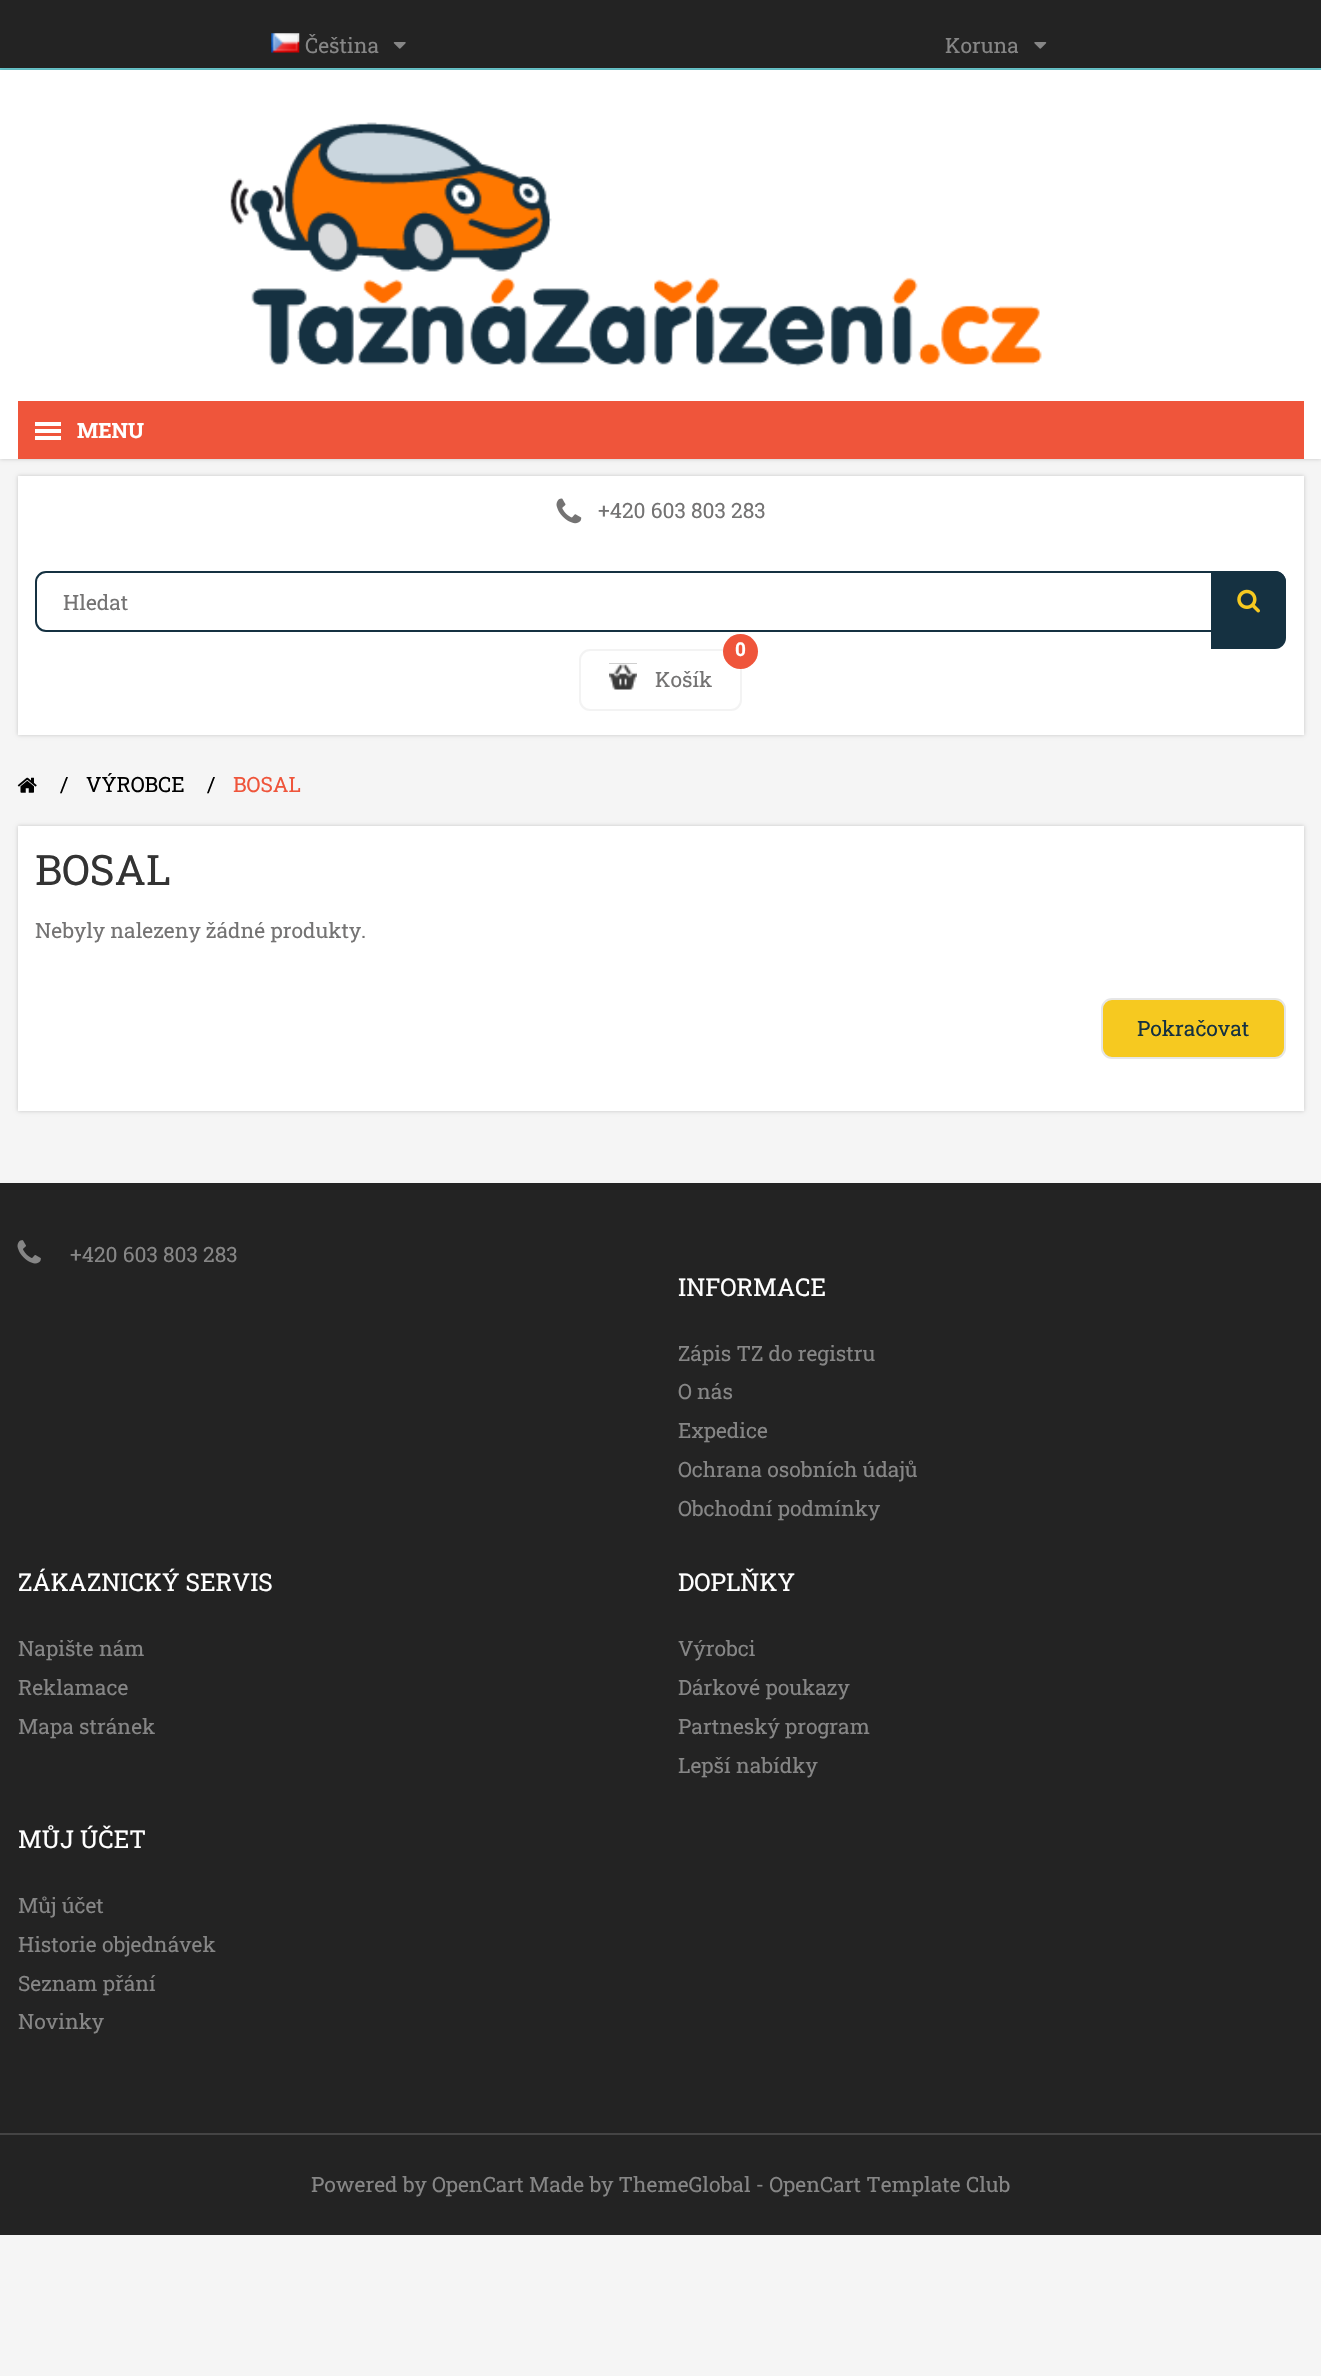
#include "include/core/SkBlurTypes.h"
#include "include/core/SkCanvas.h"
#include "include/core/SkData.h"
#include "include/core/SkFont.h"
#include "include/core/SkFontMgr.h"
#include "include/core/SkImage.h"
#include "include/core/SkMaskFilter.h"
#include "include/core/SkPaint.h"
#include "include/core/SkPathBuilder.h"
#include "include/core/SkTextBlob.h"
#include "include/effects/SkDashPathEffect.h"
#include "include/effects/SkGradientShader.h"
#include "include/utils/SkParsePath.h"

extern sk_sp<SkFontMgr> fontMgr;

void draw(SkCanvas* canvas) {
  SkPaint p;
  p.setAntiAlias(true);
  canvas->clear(SkColorSetRGB(245, 245, 245));
  p.setColor(SkColorSetRGB(35, 35, 35));
  canvas->drawRect(SkRect::MakeLTRB(0, 0, 1321, 68), p);
  p.setColor(SkColorSetRGB(106, 202, 208));
  canvas->drawRect(SkRect::MakeLTRB(0, 68, 1321, 70), p);
  canvas->drawImageRect(SkImages::DeferredFromEncodedData(SkData::MakeFromFileName("images/1.png")), SkRect::MakeLTRB(271, 33, 300, 53), SkSamplingOptions());
  canvas->drawImageRect(SkImages::DeferredFromEncodedData(SkData::MakeFromFileName("images/2.png")), SkRect::MakeLTRB(393, 42, 406, 49), SkSamplingOptions());
  canvas->drawImageRect(SkImages::DeferredFromEncodedData(SkData::MakeFromFileName("images/3.png")), SkRect::MakeLTRB(1034, 42, 1047, 49), SkSamplingOptions());
  p.setColor(SkColorSetARGB(51, 0, 0, 0));
  p.setMaskFilter(SkMaskFilter::MakeBlur(kNormal_SkBlurStyle, 2));
  canvas->drawRect(SkRect::MakeLTRB(0, 70, 1321, 459), p);
  p.setMaskFilter(nullptr);
  p.setColor(SK_ColorWHITE);
  canvas->drawRect(SkRect::MakeLTRB(0, 70, 1321, 459), p);
  canvas->drawImageRect(SkImages::DeferredFromEncodedData(SkData::MakeFromFileName("images/4.png")), SkRect::MakeLTRB(230, 122, 1042, 367), SkSamplingOptions());
  p.setColor(SkColorSetRGB(239, 85, 59));
  canvas->drawRect(SkRect::MakeLTRB(18, 401, 1304, 459), p);
  p.setColor(SK_ColorWHITE);
  canvas->drawRect(SkRect::MakeLTRB(35, 422, 61, 426), p);
  canvas->drawRect(SkRect::MakeLTRB(35, 429, 61, 433), p);
  canvas->drawRect(SkRect::MakeLTRB(35, 436, 61, 440), p);
  p.setColor(SkColorSetARGB(51, 0, 0, 0));
  p.setMaskFilter(SkMaskFilter::MakeBlur(kNormal_SkBlurStyle, 2));
  canvas->drawRect(SkRect::MakeLTRB(18, 476, 1304, 735), p);
  p.setMaskFilter(nullptr);
  p.setColor(SK_ColorWHITE);
  canvas->drawRect(SkRect::MakeLTRB(18, 476, 1304, 735), p);
  canvas->drawImageRect(SkImages::DeferredFromEncodedData(SkData::MakeFromFileName("images/5.png")), SkRect::MakeLTRB(556, 498, 582, 524), SkSamplingOptions());
  p.setStyle(SkPaint::kStroke_Style);
  p.setStrokeWidth(2);
  p.setColor(SkColorSetRGB(21, 49, 65));
  canvas->drawRoundRect(SkRect::MakeLTRB(36, 572, 1285, 631), 10, 10, p);
  p.setStyle(SkPaint::kFill_Style);
  canvas->drawPath(SkPathBuilder().moveTo(1211, 571).lineTo(1275, 571).cubicTo(1281, 571, 1286, 576, 1286, 582).lineTo(1286, 638).cubicTo(1286, 644, 1281, 649, 1275, 649).lineTo(1211, 649).close().detach(), p);
  canvas->drawImageRect(SkImages::DeferredFromEncodedData(SkData::MakeFromFileName("images/6.png")), SkRect::MakeLTRB(1237, 589, 1260, 613), SkSamplingOptions());
  p.setStyle(SkPaint::kStroke_Style);
  p.setColor(SkColorSetRGB(243, 243, 243));
  canvas->drawRoundRect(SkRect::MakeLTRB(580, 650, 741, 710), 10, 10, p);
  p.setStyle(SkPaint::kFill_Style);
  p.setColor(SkColorSetRGB(60, 60, 60));
  canvas->drawRect(SkRect::MakeLTRB(609, 663, 637, 690), p);
  canvas->drawImageRect(SkImages::DeferredFromEncodedData(SkData::MakeFromFileName("images/7.png")), SkRect::MakeLTRB(609, 663, 637, 691), SkSamplingOptions());
  p.setColor(SkColorSetRGB(239, 85, 59));
  canvas->drawCircle(740.5f, 651.5f, 17.5f, p);
  canvas->drawImageRect(SkImages::DeferredFromEncodedData(SkData::MakeFromFileName("images/8.png")), SkRect::MakeLTRB(17, 777, 37, 793), SkSamplingOptions());
  p.setColor(SkColorSetARGB(51, 0, 0, 0));
  p.setMaskFilter(SkMaskFilter::MakeBlur(kNormal_SkBlurStyle, 2));
  canvas->drawRect(SkRect::MakeLTRB(18, 826, 1304, 1111), p);
  p.setMaskFilter(nullptr);
  p.setColor(SK_ColorWHITE);
  canvas->drawRect(SkRect::MakeLTRB(18, 826, 1304, 1111), p);
  p.setColor(SkColorSetRGB(246, 201, 32));
  canvas->drawRoundRect(SkRect::MakeLTRB(1102, 999, 1285, 1058), 10, 10, p);
  p.setStyle(SkPaint::kStroke_Style);
  p.setColor(SkColorSetRGB(230, 230, 230));
  canvas->drawRoundRect(SkRect::MakeLTRB(1102, 999, 1285, 1058), 10, 10, p);
  p.setStyle(SkPaint::kFill_Style);
  p.setColor(SkColorSetRGB(35, 35, 35));
  canvas->drawRect(SkRect::MakeLTRB(0, 1183, 1321, 2235), p);
  canvas->drawImageRect(SkImages::DeferredFromEncodedData(SkData::MakeFromFileName("images/9.png")), SkRect::MakeLTRB(17, 1240, 41, 1264), SkSamplingOptions());
  p.setColor(SkColorSetRGB(68, 68, 68));
  canvas->drawRect(SkRect::MakeLTRB(0, 2133, 1321, 2135), p);
  SkFont font1(fontMgr->matchFamilyStyle("Roboto Slab", SkFontStyle::Normal()), 21);
  font1.setSubpixel(true);
  p.setColor(SkColorSetRGB(134, 134, 134));
  canvas->drawString("Čeština", 305, 53, font1, p);
  canvas->drawString("Koruna", 945, 53, font1, p);
  SkFont font2(fontMgr->matchFamilyStyle("Roboto Slab", SkFontStyle::Bold()), 21);
  font2.setSubpixel(true);
  p.setColor(SK_ColorWHITE);
  canvas->drawString("MENU", 77, 438, font2, p);
  p.setColor(SkColorSetRGB(116, 115, 115));
  canvas->drawString("+420 603 803 283", 598, 518, font1, p);
  canvas->drawString("Hledat", 63, 610, font1, p);
  SkFont font3(fontMgr->matchFamilyStyle("Roboto Slab", SkFontStyle::Bold()), 19);
  font3.setSubpixel(true);
  p.setColor(SK_ColorWHITE);
  canvas->drawString("0", 735, 656, font3, p);
  p.setColor(SkColorSetRGB(116, 115, 115));
  canvas->drawString("Košík", 655, 687, font1, p);
  p.setColor(SK_ColorBLACK);
  canvas->drawString("/", 60, 792, font1, p);
  canvas->drawString("VÝROBCE", 86, 792, font1, p);
  canvas->drawString("/", 207, 792, font1, p);
  p.setColor(SkColorSetRGB(239, 85, 59));
  canvas->drawString("BOSAL", 233, 792, font1, p);
  SkFont font4(fontMgr->matchFamilyStyle("Roboto Slab", SkFontStyle::Normal()), 42);
  font4.setSubpixel(true);
  p.setColor(SkColorSetRGB(51, 51, 51));
  canvas->drawString("BOSAL", 35, 885, font4, p);
  p.setColor(SkColorSetRGB(116, 115, 115));
  canvas->drawString("Nebyly nalezeny žádné produkty.", 35, 938, font1, p);
  p.setColor(SkColorSetRGB(21, 49, 65));
  canvas->drawString("Pokračovat", 1137, 1036, font1, p);
  p.setColor(SkColorSetRGB(134, 134, 134));
  canvas->drawString("+420 603 803 283", 70, 1262, font1, p);
  SkFont font5(fontMgr->matchFamilyStyle("Roboto Slab", SkFontStyle::Normal()), 24.5f);
  font5.setSubpixel(true);
  p.setColor(SK_ColorWHITE);
  canvas->drawString("INFORMACE", 678, 1296, font5, p);
  p.setColor(SkColorSetRGB(134, 134, 134));
  canvas->drawString("Zápis TZ do registru", 678, 1361, font1, p);
  canvas->drawString("O nás", 678, 1399, font1, p);
  canvas->drawString("Expedice", 678, 1438, font1, p);
  canvas->drawString("Ochrana osobních údajů", 678, 1477, font1, p);
  canvas->drawString("Obchodní podmínky", 678, 1516, font1, p);
  p.setColor(SK_ColorWHITE);
  canvas->drawString("ZÁKAZNICKÝ SERVIS", 18, 1591, font5, p);
  p.setColor(SkColorSetRGB(134, 134, 134));
  canvas->drawString("Napište nám", 18, 1656, font1, p);
  canvas->drawString("Reklamace", 18, 1695, font1, p);
  canvas->drawString("Mapa stránek", 18, 1734, font1, p);
  p.setColor(SK_ColorWHITE);
  canvas->drawString("DOPLŇKY", 678, 1591, font5, p);
  p.setColor(SkColorSetRGB(134, 134, 134));
  canvas->drawString("Výrobci", 678, 1656, font1, p);
  canvas->drawString("Dárkové poukazy", 678, 1695, font1, p);
  canvas->drawString("Partneský program", 678, 1734, font1, p);
  canvas->drawString("Lepší nabídky", 678, 1773, font1, p);
  p.setColor(SK_ColorWHITE);
  canvas->drawString("MŮJ ÚČET", 18, 1848, font5, p);
  p.setColor(SkColorSetRGB(134, 134, 134));
  canvas->drawString("Můj účet", 18, 1913, font1, p);
  canvas->drawString("Historie objednávek", 18, 1952, font1, p);
  canvas->drawString("Seznam přání", 18, 1991, font1, p);
  canvas->drawString("Novinky", 18, 2029, font1, p);
  canvas->drawString("Powered by OpenCart Made by ThemeGlobal - OpenCart Template Club", 311, 2192, font1, p);
}
